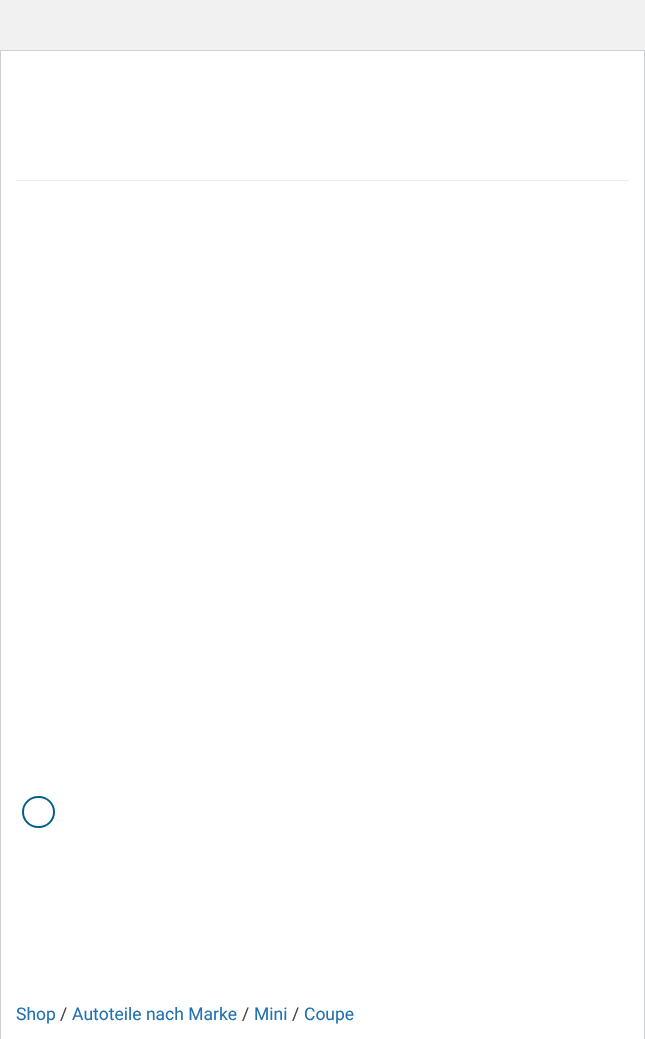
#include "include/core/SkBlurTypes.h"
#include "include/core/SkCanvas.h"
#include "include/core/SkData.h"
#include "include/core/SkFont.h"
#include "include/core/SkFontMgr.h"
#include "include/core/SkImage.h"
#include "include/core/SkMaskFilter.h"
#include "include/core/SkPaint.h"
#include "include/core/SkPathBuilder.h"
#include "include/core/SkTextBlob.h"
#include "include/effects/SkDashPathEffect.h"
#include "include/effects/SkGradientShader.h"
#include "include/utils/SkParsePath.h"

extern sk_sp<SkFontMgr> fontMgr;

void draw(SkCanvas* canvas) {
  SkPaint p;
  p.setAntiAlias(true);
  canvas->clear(SkColorSetRGB(241, 241, 241));
  p.setColor(SK_ColorWHITE);
  canvas->drawRect(SkRect::MakeLTRB(0.5f, 50.5f, 644.5f, 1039.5f), p);
  p.setStyle(SkPaint::kStroke_Style);
  p.setStrokeWidth(1);
  p.setColor(SkColorSetRGB(204, 208, 212));
  canvas->drawRect(SkRect::MakeLTRB(0.5f, 50.5f, 644.5f, 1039.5f), p);
  p.setStyle(SkPaint::kFill_Style);
  p.setColor(SkColorSetRGB(236, 236, 236));
  canvas->drawRect(SkRect::MakeLTRB(16, 180, 629, 181), p);
  p.setStyle(SkPaint::kStroke_Style);
  p.setStrokeWidth(2);
  p.setColor(SkColorSetRGB(1, 96, 135));
  canvas->drawRoundRect(SkRect::MakeLTRB(23, 797, 54, 827), 15, 15, p);
  SkFont font1(fontMgr->matchFamilyStyle("Roboto", SkFontStyle::Normal()), 17.5f);
  font1.setSubpixel(true);
  p.setStyle(SkPaint::kFill_Style);
  p.setColor(SkColorSetRGB(34, 113, 177));
  canvas->drawString("Shop", 16, 1020, font1, p);
  p.setColor(SkColorSetRGB(68, 68, 68));
  canvas->drawString("/", 60, 1020, font1, p);
  p.setColor(SkColorSetRGB(34, 113, 177));
  canvas->drawString("Autoteile nach Marke", 72, 1020, font1, p);
  p.setColor(SkColorSetRGB(68, 68, 68));
  canvas->drawString("/", 242, 1020, font1, p);
  p.setColor(SkColorSetRGB(34, 113, 177));
  canvas->drawString("Mini", 254, 1020, font1, p);
  p.setColor(SkColorSetRGB(68, 68, 68));
  canvas->drawString("/", 292, 1020, font1, p);
  p.setColor(SkColorSetRGB(34, 113, 177));
  canvas->drawString("Coupe", 304, 1020, font1, p);
}
